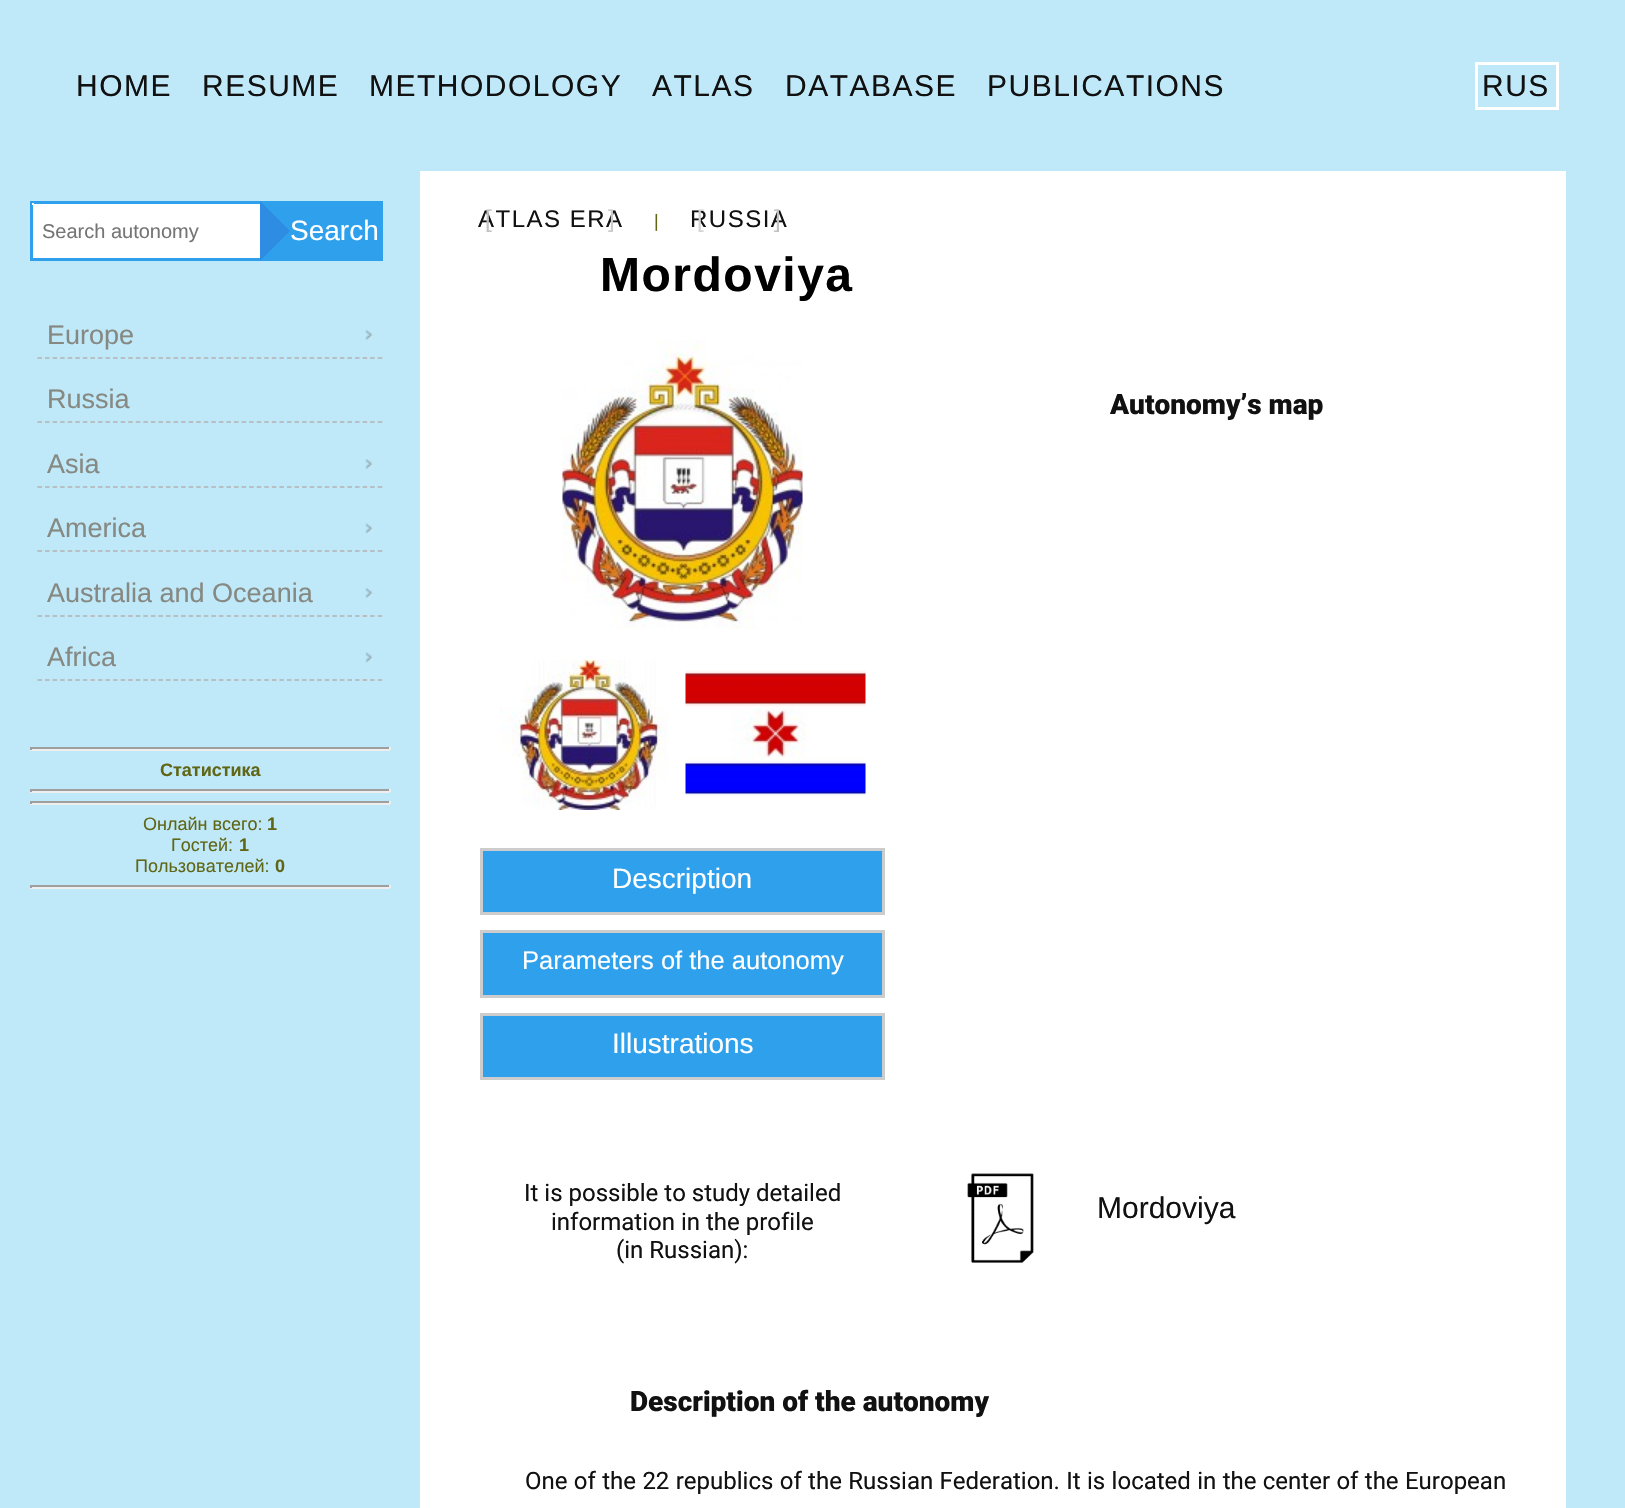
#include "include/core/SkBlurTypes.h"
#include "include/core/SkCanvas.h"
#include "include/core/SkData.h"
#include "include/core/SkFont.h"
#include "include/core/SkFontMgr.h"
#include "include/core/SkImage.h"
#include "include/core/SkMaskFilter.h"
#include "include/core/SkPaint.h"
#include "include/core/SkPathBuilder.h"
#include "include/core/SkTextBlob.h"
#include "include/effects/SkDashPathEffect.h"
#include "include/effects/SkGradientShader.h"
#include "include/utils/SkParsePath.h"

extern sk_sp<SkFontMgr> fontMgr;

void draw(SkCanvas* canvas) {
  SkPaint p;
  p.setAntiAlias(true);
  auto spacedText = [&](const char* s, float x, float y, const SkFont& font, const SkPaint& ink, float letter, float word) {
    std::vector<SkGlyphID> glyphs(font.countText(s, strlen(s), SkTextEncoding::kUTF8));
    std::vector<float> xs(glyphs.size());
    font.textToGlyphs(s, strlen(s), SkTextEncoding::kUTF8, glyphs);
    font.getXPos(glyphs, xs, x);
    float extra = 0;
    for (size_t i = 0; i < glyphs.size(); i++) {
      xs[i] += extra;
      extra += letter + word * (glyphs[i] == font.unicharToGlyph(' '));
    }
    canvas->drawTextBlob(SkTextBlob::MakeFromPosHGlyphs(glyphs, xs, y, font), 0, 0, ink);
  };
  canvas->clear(SK_ColorWHITE);
  p.setColor(SkColorSetRGB(191, 232, 248));
  canvas->drawRect(SkRect::MakeLTRB(0, 0, 1625, 171), p);
  p.setStyle(SkPaint::kStroke_Style);
  p.setStrokeWidth(3);
  p.setColor(SK_ColorWHITE);
  canvas->drawRect(SkRect::MakeLTRB(1476.5f, 63.5f, 1557.5f, 108.5f), p);
  p.setStyle(SkPaint::kFill_Style);
  p.setColor(SkColorSetRGB(191, 232, 248));
  canvas->drawRect(SkRect::MakeLTRB(0, 171, 420, 1508), p);
  p.setColor(SK_ColorWHITE);
  canvas->drawRect(SkRect::MakeLTRB(33, 204, 260, 258), p);
  p.setStyle(SkPaint::kStroke_Style);
  p.setColor(SkColorSetRGB(47, 160, 236));
  canvas->drawRect(SkRect::MakeLTRB(31.5f, 202.5f, 381.5f, 259.5f), p);
  p.setStyle(SkPaint::kFill_Style);
  p.setColor(SK_ColorWHITE);
  canvas->drawRect(SkRect::MakeLTRB(32, 203, 34, 205), p);
  p.setColor(SkColorSetRGB(47, 160, 236));
  canvas->drawRect(SkRect::MakeLTRB(263, 204, 380, 258), p);
  p.setColor(SkColorSetRGB(46, 140, 227));
  canvas->drawPath(SkPathBuilder().moveTo(260, 261).lineTo(260, 201).lineTo(290, 231).close().detach(), p);
  canvas->drawImageRect(SkImages::DeferredFromEncodedData(SkData::MakeFromFileName("images/1.png")), SkRect::MakeLTRB(365, 330, 374, 341), SkSamplingOptions());
  p.setStyle(SkPaint::kStroke_Style);
  p.setStrokeWidth(1.5f);
  p.setColor(SkColorSetRGB(179, 179, 179));
  p.setPathEffect(SkDashPathEffect::Make({{4.5f, 3.06f}}, 0));
  canvas->drawPath(SkPathBuilder().moveTo(37.5f, 358).lineTo(382.5f, 358).detach(), p);
  p.setPathEffect(nullptr);
  p.setPathEffect(SkDashPathEffect::Make({{4.5f, 3.06f}}, 0));
  canvas->drawPath(SkPathBuilder().moveTo(37.5f, 422).lineTo(382.5f, 422).detach(), p);
  p.setPathEffect(nullptr);
  canvas->drawImageRect(SkImages::DeferredFromEncodedData(SkData::MakeFromFileName("images/1.png")), SkRect::MakeLTRB(365, 459, 374, 470), SkSamplingOptions());
  p.setPathEffect(SkDashPathEffect::Make({{4.5f, 3.06f}}, 0));
  canvas->drawPath(SkPathBuilder().moveTo(37.5f, 487).lineTo(382.5f, 487).detach(), p);
  p.setPathEffect(nullptr);
  canvas->drawImageRect(SkImages::DeferredFromEncodedData(SkData::MakeFromFileName("images/2.png")), SkRect::MakeLTRB(365, 523, 374, 534), SkSamplingOptions());
  p.setPathEffect(SkDashPathEffect::Make({{4.5f, 3.06f}}, 0));
  canvas->drawPath(SkPathBuilder().moveTo(37.5f, 551).lineTo(382.5f, 551).detach(), p);
  p.setPathEffect(nullptr);
  canvas->drawImageRect(SkImages::DeferredFromEncodedData(SkData::MakeFromFileName("images/1.png")), SkRect::MakeLTRB(365, 588, 374, 599), SkSamplingOptions());
  p.setPathEffect(SkDashPathEffect::Make({{4.5f, 3.06f}}, 0));
  canvas->drawPath(SkPathBuilder().moveTo(37.5f, 616).lineTo(382.5f, 616).detach(), p);
  p.setPathEffect(nullptr);
  canvas->drawImageRect(SkImages::DeferredFromEncodedData(SkData::MakeFromFileName("images/2.png")), SkRect::MakeLTRB(365, 652, 374, 663), SkSamplingOptions());
  p.setPathEffect(SkDashPathEffect::Make({{4.5f, 3.06f}}, 0));
  canvas->drawPath(SkPathBuilder().moveTo(37.5f, 680).lineTo(382.5f, 680).detach(), p);
  p.setPathEffect(nullptr);
  p.setStyle(SkPaint::kFill_Style);
  p.setColor(SkColorSetRGB(159, 159, 159));
  canvas->drawRect(SkRect::MakeLTRB(30, 747, 390, 749), p);
  p.setColor(SkColorSetRGB(238, 238, 238));
  canvas->drawRect(SkRect::MakeLTRB(389, 747, 391, 750), p);
  canvas->drawRect(SkRect::MakeLTRB(30, 749, 390, 751), p);
  p.setColor(SkColorSetRGB(159, 159, 159));
  canvas->drawRect(SkRect::MakeLTRB(30, 747, 32, 750), p);
  canvas->drawRect(SkRect::MakeLTRB(30, 789, 390, 791), p);
  p.setColor(SkColorSetRGB(238, 238, 238));
  canvas->drawRect(SkRect::MakeLTRB(389, 789, 391, 792), p);
  canvas->drawRect(SkRect::MakeLTRB(30, 791, 390, 793), p);
  p.setColor(SkColorSetRGB(159, 159, 159));
  canvas->drawRect(SkRect::MakeLTRB(30, 789, 32, 792), p);
  canvas->drawRect(SkRect::MakeLTRB(30, 801, 390, 803), p);
  p.setColor(SkColorSetRGB(238, 238, 238));
  canvas->drawRect(SkRect::MakeLTRB(389, 801, 391, 804), p);
  canvas->drawRect(SkRect::MakeLTRB(30, 803, 390, 805), p);
  p.setColor(SkColorSetRGB(159, 159, 159));
  canvas->drawRect(SkRect::MakeLTRB(30, 801, 32, 804), p);
  canvas->drawRect(SkRect::MakeLTRB(30, 885, 390, 887), p);
  p.setColor(SkColorSetRGB(238, 238, 238));
  canvas->drawRect(SkRect::MakeLTRB(389, 885, 391, 888), p);
  canvas->drawRect(SkRect::MakeLTRB(30, 887, 390, 889), p);
  p.setColor(SkColorSetRGB(159, 159, 159));
  canvas->drawRect(SkRect::MakeLTRB(30, 885, 32, 888), p);
  canvas->drawImageRect(SkImages::DeferredFromEncodedData(SkData::MakeFromFileName("images/3.png")), SkRect::MakeLTRB(562, 340, 803, 629), SkSamplingOptions());
  canvas->drawImageRect(SkImages::DeferredFromEncodedData(SkData::MakeFromFileName("images/4.png")), SkRect::MakeLTRB(500, 660, 668, 810), SkSamplingOptions());
  canvas->drawImageRect(SkImages::DeferredFromEncodedData(SkData::MakeFromFileName("images/5.png")), SkRect::MakeLTRB(685, 670, 866, 796), SkSamplingOptions());
  p.setColor(SkColorSetRGB(47, 160, 236));
  canvas->drawRect(SkRect::MakeLTRB(481.5f, 849.5f, 883.5f, 913.5f), p);
  p.setStyle(SkPaint::kStroke_Style);
  p.setStrokeWidth(3);
  p.setColor(SkColorSetRGB(204, 204, 204));
  canvas->drawRect(SkRect::MakeLTRB(481.5f, 849.5f, 883.5f, 913.5f), p);
  p.setStyle(SkPaint::kFill_Style);
  p.setColor(SkColorSetRGB(47, 160, 236));
  canvas->drawRect(SkRect::MakeLTRB(481.5f, 931.5f, 883.5f, 996.5f), p);
  p.setStyle(SkPaint::kStroke_Style);
  p.setColor(SkColorSetRGB(204, 204, 204));
  canvas->drawRect(SkRect::MakeLTRB(481.5f, 931.5f, 883.5f, 996.5f), p);
  p.setStyle(SkPaint::kFill_Style);
  p.setColor(SkColorSetRGB(47, 160, 236));
  canvas->drawRect(SkRect::MakeLTRB(481.5f, 1014.5f, 883.5f, 1078.5f), p);
  p.setStyle(SkPaint::kStroke_Style);
  p.setColor(SkColorSetRGB(204, 204, 204));
  canvas->drawRect(SkRect::MakeLTRB(481.5f, 1014.5f, 883.5f, 1078.5f), p);
  canvas->drawImageRect(SkImages::DeferredFromEncodedData(SkData::MakeFromFileName("images/6.png")), SkRect::MakeLTRB(967, 1173, 1034, 1263), SkSamplingOptions());
  p.setStyle(SkPaint::kFill_Style);
  p.setColor(SkColorSetRGB(191, 232, 248));
  canvas->drawRect(SkRect::MakeLTRB(1566, 171, 1625, 1508), p);
  SkFont font1(fontMgr->matchFamilyStyle("Liberation Sans", SkFontStyle::Normal()), 30);
  font1.setSubpixel(true);
  p.setColor(SkColorSetRGB(17, 17, 17));
  spacedText("HOME", 76, 96, font1, p, 1.5f, 0);
  spacedText("RESUME", 202, 96, font1, p, 1.5f, 0);
  spacedText("METHODOLOGY", 369, 96, font1, p, 1.5f, 0);
  spacedText("ATLAS", 652, 96, font1, p, 1.5f, 0);
  spacedText("DATABASE", 785, 96, font1, p, 1.5f, 0);
  spacedText("PUBLICATIONS", 987, 96, font1, p, 1.5f, 0);
  spacedText("RUS", 1482, 96, font1, p, 1.5f, 0);
  SkFont font2(fontMgr->matchFamilyStyle("Liberation Sans", SkFontStyle::Normal()), 20);
  font2.setSubpixel(true);
  p.setColor(SkColorSetRGB(117, 117, 117));
  canvas->drawString("Search autonomy", 42, 238, font2, p);
  SkFont font3(fontMgr->matchFamilyStyle("Liberation Sans", SkFontStyle::Normal()), 28);
  font3.setSubpixel(true);
  p.setColor(SK_ColorWHITE);
  canvas->drawString("Search", 290, 240, font3, p);
  SkFont font4(fontMgr->matchFamilyStyle("Liberation Sans", SkFontStyle::Normal()), 27);
  font4.setSubpixel(true);
  p.setColor(SkColorSetRGB(134, 136, 130));
  canvas->drawString("Europe", 47, 344, font4, p);
  canvas->drawString("Russia", 47, 408, font4, p);
  canvas->drawString("Asia", 47, 473, font4, p);
  canvas->drawString("America", 47, 537, font4, p);
  canvas->drawString("Australia and Oceania", 47, 602, font4, p);
  canvas->drawString("Africa", 47, 666, font4, p);
  SkFont font5(fontMgr->matchFamilyStyle("Liberation Sans", SkFontStyle::Bold()), 18);
  font5.setSubpixel(true);
  p.setColor(SkColorSetRGB(96, 102, 21));
  canvas->drawString("Статистика", 160, 776, font5, p);
  SkFont font6(fontMgr->matchFamilyStyle("Liberation Sans", SkFontStyle::Normal()), 18);
  font6.setSubpixel(true);
  canvas->drawString("Онлайн всего:", 143, 830, font6, p);
  canvas->drawString("1", 267, 830, font5, p);
  canvas->drawString("Гостей:", 171, 851, font6, p);
  canvas->drawString("1", 239, 851, font5, p);
  canvas->drawString("Пользователей:", 135, 872, font6, p);
  canvas->drawString("0", 275, 872, font5, p);
  SkFont font7(fontMgr->matchFamilyStyle("Liberation Sans", SkFontStyle::Normal()), 24);
  font7.setSubpixel(true);
  p.setColor(SkColorSetRGB(17, 17, 17));
  spacedText("ATLAS ERA", 478, 227, font7, p, 1.5f, 0);
  p.setColor(SkColorSetRGB(203, 203, 203));
  spacedText("]", 608, 227, font7, p, 1.5f, 0);
  p.setColor(SkColorSetRGB(194, 194, 194));
  spacedText("[", 485, 227, font7, p, 1.5f, 0);
  p.setColor(SkColorSetRGB(96, 102, 21));
  canvas->drawString("|", 654, 227, font6, p);
  p.setColor(SkColorSetRGB(17, 17, 17));
  spacedText("RUSSIA", 690, 227, font7, p, 1.5f, 0);
  p.setColor(SkColorSetRGB(194, 194, 194));
  spacedText("]", 774, 227, font7, p, 1.5f, 0);
  p.setColor(SkColorSetRGB(211, 211, 211));
  spacedText("[", 697, 227, font7, p, 1.5f, 0);
  SkFont font8(fontMgr->matchFamilyStyle("Liberation Sans", SkFontStyle::Bold()), 48);
  font8.setSubpixel(true);
  p.setColor(SK_ColorBLACK);
  spacedText("Mordoviya", 600, 291, font8, p, 1.5f, 0);
  SkFont font9(fontMgr->matchFamilyStyle("Roboto", SkFontStyle(900, SkFontStyle::kNormal_Width, SkFontStyle::kUpright_Slant)), 28);
  font9.setSubpixel(true);
  p.setColor(SkColorSetRGB(17, 17, 17));
  canvas->drawString("Autonomy’s map", 1110, 414, font9, p);
  p.setColor(SK_ColorWHITE);
  canvas->drawString("Description", 612, 888, font3, p);
  SkFont font10(fontMgr->matchFamilyStyle("Liberation Sans", SkFontStyle::Normal()), 25.5f);
  font10.setSubpixel(true);
  canvas->drawString("Parameters of the autonomy", 522, 969, font10, p);
  canvas->drawString("Illustrations", 612, 1053, font3, p);
  SkFont font11(fontMgr->matchFamilyStyle("Roboto", SkFontStyle::Normal()), 24);
  font11.setSubpixel(true);
  p.setColor(SkColorSetRGB(17, 17, 17));
  canvas->drawString("It is possible to study detailed", 524, 1201, font11, p);
  canvas->drawString("information in the profile", 551, 1230, font11, p);
  canvas->drawString("(in Russian):", 616, 1258, font11, p);
  canvas->drawString("Mordoviya", 1097, 1218, font1, p);
  canvas->drawString("Description of the autonomy", 630, 1411, font9, p);
  spacedText("One of the 22 republics of the Russian Federation. It is located in the center of the European", 525, 1489, font11, p, 0, 0.4f);
}
